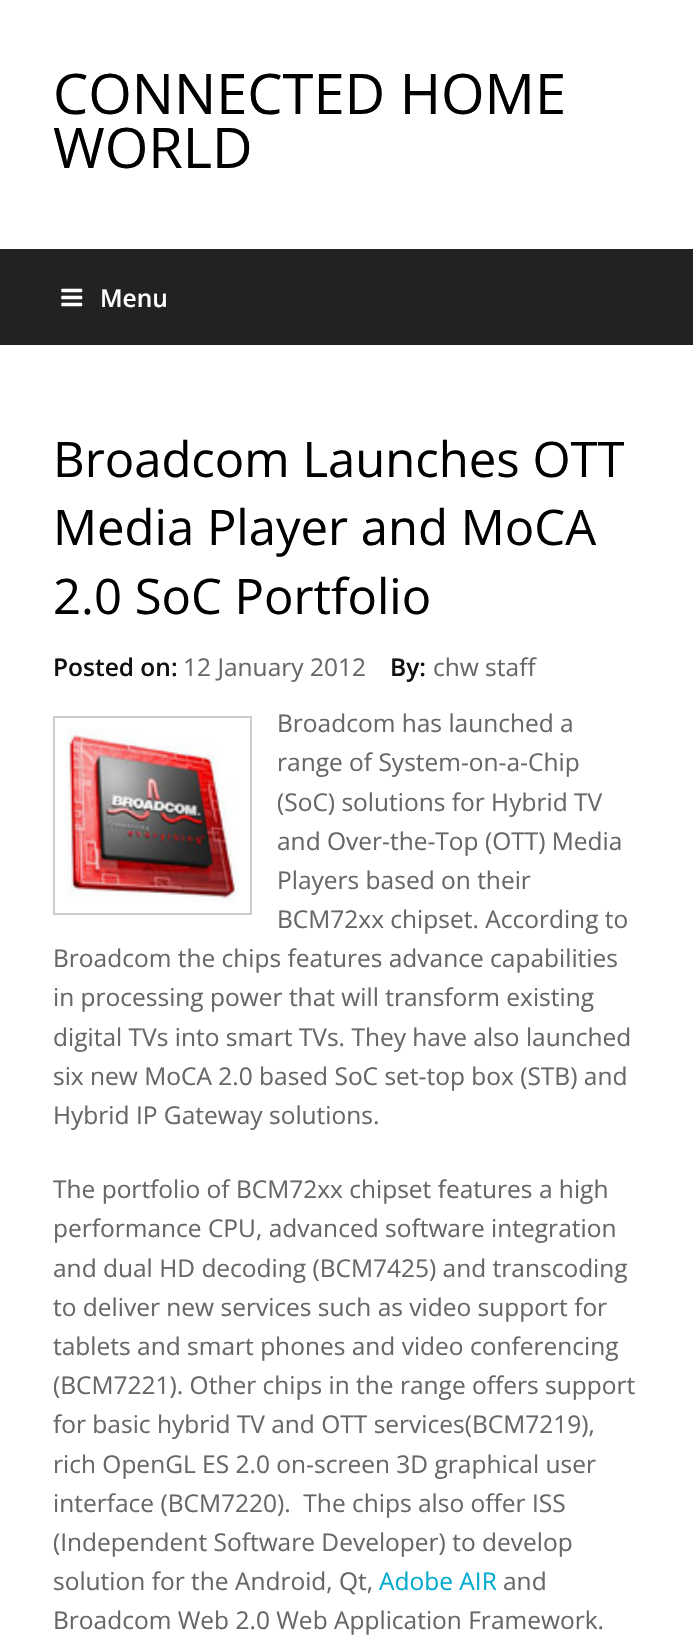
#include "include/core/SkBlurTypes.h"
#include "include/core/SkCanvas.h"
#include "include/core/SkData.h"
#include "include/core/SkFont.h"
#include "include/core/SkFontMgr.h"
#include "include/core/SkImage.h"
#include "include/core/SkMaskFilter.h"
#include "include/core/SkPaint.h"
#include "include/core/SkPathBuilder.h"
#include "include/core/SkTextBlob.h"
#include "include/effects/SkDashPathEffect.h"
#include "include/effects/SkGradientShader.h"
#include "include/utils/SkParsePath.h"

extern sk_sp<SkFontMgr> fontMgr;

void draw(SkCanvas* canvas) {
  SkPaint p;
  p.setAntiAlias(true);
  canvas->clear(SK_ColorWHITE);
  p.setColor(SkColorSetRGB(34, 34, 34));
  canvas->drawRect(SkRect::MakeLTRB(0, 249, 693, 345), p);
  canvas->drawImageRect(SkImages::DeferredFromEncodedData(SkData::MakeFromFileName("images/1.png")), SkRect::MakeLTRB(61, 288, 83, 307), SkSamplingOptions());
  p.setStyle(SkPaint::kStroke_Style);
  p.setStrokeWidth(2);
  p.setColor(SkColorSetRGB(204, 204, 204));
  canvas->drawRect(SkRect::MakeLTRB(54, 717, 251, 914), p);
  canvas->drawImageRect(SkImages::DeferredFromEncodedData(SkData::MakeFromFileName("images/2.png")), SkRect::MakeLTRB(65, 728, 239, 903), SkSamplingOptions());
  SkFont font1(fontMgr->matchFamilyStyle("Open Sans", SkFontStyle::Normal()), 56);
  font1.setSubpixel(true);
  p.setStyle(SkPaint::kFill_Style);
  p.setColor(SK_ColorBLACK);
  canvas->drawString("CONNECTED HOME", 53, 114, font1, p);
  canvas->drawString("WORLD", 53, 168, font1, p);
  SkFont font2(fontMgr->matchFamilyStyle("Open Sans", SkFontStyle(600, SkFontStyle::kNormal_Width, SkFontStyle::kUpright_Slant)), 24.5f);
  font2.setSubpixel(true);
  p.setColor(SK_ColorWHITE);
  canvas->drawString("Menu", 100, 307, font2, p);
  SkFont font3(fontMgr->matchFamilyStyle("Open Sans", SkFontStyle::Normal()), 49);
  font3.setSubpixel(true);
  p.setColor(SK_ColorBLACK);
  canvas->drawString("Broadcom Launches OTT", 53, 477, font3, p);
  canvas->drawString("Media Player and MoCA", 53, 545, font3, p);
  canvas->drawString("2.0 SoC Portfolio", 53, 614, font3, p);
  p.setColor(SkColorSetRGB(17, 17, 17));
  canvas->drawString("Posted on:", 53, 676, font2, p);
  SkFont font4(fontMgr->matchFamilyStyle("Open Sans", SkFontStyle::Normal()), 24.5f);
  font4.setSubpixel(true);
  p.setColor(SkColorSetRGB(103, 103, 103));
  canvas->drawString("12 January 2012", 183, 676, font4, p);
  p.setColor(SkColorSetRGB(17, 17, 17));
  canvas->drawString("By:", 390, 676, font2, p);
  p.setColor(SkColorSetRGB(103, 103, 103));
  canvas->drawString("chw staff", 433, 676, font4, p);
  canvas->drawString("Broadcom has launched a", 277, 732, font4, p);
  canvas->drawString("range of System-on-a-Chip", 277, 771, font4, p);
  canvas->drawString("(SoC) solutions for Hybrid TV", 277, 811, font4, p);
  canvas->drawString("and Over-the-Top (OTT) Media", 277, 850, font4, p);
  canvas->drawString("Players based on their", 277, 889, font4, p);
  canvas->drawString("BCM72xx chipset. According to", 277, 928, font4, p);
  canvas->drawString("Broadcom the chips features advance capabilities", 53, 967, font4, p);
  canvas->drawString("in processing power that will transform existing", 53, 1006, font4, p);
  canvas->drawString("digital TVs into smart TVs. They have also launched", 53, 1046, font4, p);
  canvas->drawString("six new MoCA 2.0 based SoC set-top box (STB) and", 53, 1085, font4, p);
  canvas->drawString("Hybrid IP Gateway solutions.", 53, 1124, font4, p);
  canvas->drawString("The portfolio of BCM72xx chipset features a high", 53, 1198, font4, p);
  canvas->drawString("performance CPU, advanced software integration", 53, 1237, font4, p);
  canvas->drawString("and dual HD decoding (BCM7425) and transcoding", 53, 1277, font4, p);
  canvas->drawString("to deliver new services such as video support for", 53, 1316, font4, p);
  canvas->drawString("tablets and smart phones and video conferencing", 53, 1355, font4, p);
  canvas->drawString("(BCM7221). Other chips in the range offers support", 53, 1394, font4, p);
  canvas->drawString("for basic hybrid TV and OTT services(BCM7219),", 53, 1433, font4, p);
  canvas->drawString("rich OpenGL ES 2.0 on-screen 3D graphical user", 53, 1473, font4, p);
  canvas->drawString("interface (BCM7220).  The chips also offer ISS", 53, 1512, font4, p);
  canvas->drawString("(Independent Software Developer) to develop", 53, 1551, font4, p);
  canvas->drawString("solution for the Android, Qt,", 53, 1590, font4, p);
  p.setColor(SkColorSetRGB(2, 170, 206));
  canvas->drawString("Adobe AIR", 379, 1590, font4, p);
  p.setColor(SkColorSetRGB(103, 103, 103));
  canvas->drawString("and", 503, 1590, font4, p);
  canvas->drawString("Broadcom Web 2.0 Web Application Framework.", 53, 1629, font4, p);
}
